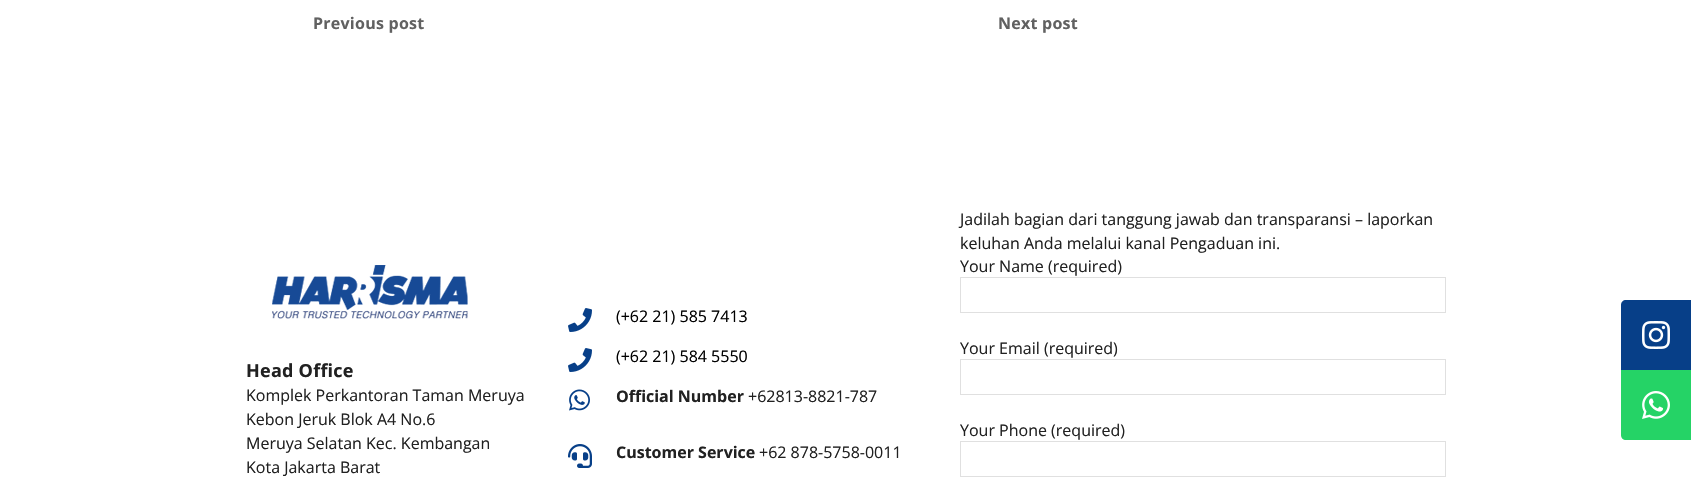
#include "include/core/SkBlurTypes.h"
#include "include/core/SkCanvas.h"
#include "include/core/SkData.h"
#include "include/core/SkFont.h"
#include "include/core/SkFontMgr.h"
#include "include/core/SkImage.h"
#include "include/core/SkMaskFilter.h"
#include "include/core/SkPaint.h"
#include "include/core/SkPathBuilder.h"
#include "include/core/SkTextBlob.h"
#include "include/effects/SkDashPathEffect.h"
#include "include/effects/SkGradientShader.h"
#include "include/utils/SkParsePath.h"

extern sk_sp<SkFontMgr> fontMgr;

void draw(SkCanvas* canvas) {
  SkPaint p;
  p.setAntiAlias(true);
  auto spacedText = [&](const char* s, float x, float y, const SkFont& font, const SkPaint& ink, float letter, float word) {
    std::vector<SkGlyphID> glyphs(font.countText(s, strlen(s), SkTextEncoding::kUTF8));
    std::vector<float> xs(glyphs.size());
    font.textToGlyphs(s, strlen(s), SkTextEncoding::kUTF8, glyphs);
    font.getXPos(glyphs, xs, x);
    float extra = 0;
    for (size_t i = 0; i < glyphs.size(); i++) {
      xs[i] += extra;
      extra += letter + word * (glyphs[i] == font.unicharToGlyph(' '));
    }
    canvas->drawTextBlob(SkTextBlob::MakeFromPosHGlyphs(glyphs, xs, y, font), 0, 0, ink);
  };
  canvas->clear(SK_ColorWHITE);
  canvas->drawImageRect(SkImages::DeferredFromEncodedData(SkData::MakeFromFileName("images/1.png")), SkRect::MakeLTRB(272, 265, 468, 319), SkSamplingOptions());
  canvas->drawImageRect(SkImages::DeferredFromEncodedData(SkData::MakeFromFileName("images/2.png")), SkRect::MakeLTRB(568, 308, 592, 332), SkSamplingOptions());
  canvas->drawImageRect(SkImages::DeferredFromEncodedData(SkData::MakeFromFileName("images/2.png")), SkRect::MakeLTRB(568, 348, 592, 372), SkSamplingOptions());
  canvas->drawImageRect(SkImages::DeferredFromEncodedData(SkData::MakeFromFileName("images/3.png")), SkRect::MakeLTRB(569, 389, 590, 411), SkSamplingOptions());
  canvas->drawImageRect(SkImages::DeferredFromEncodedData(SkData::MakeFromFileName("images/4.png")), SkRect::MakeLTRB(568, 444, 592, 468), SkSamplingOptions());
  p.setStyle(SkPaint::kStroke_Style);
  p.setStrokeWidth(1);
  p.setColor(SkColorSetRGB(224, 224, 224));
  canvas->drawRect(SkRect::MakeLTRB(960.5f, 277.5f, 1445.5f, 312.5f), p);
  canvas->drawRect(SkRect::MakeLTRB(960.5f, 359.5f, 1445.5f, 394.5f), p);
  canvas->drawRect(SkRect::MakeLTRB(960.5f, 441.5f, 1445.5f, 476.5f), p);
  p.setStyle(SkPaint::kFill_Style);
  p.setColor(SkColorSetRGB(7, 63, 136));
  canvas->drawPath(SkPathBuilder().moveTo(1626, 300).lineTo(1691, 300).lineTo(1691, 370).lineTo(1621, 370).lineTo(1621, 305).cubicTo(1621, 302, 1623, 300, 1626, 300).close().detach(), p);
  canvas->drawImageRect(SkImages::DeferredFromEncodedData(SkData::MakeFromFileName("images/5.png")), SkRect::MakeLTRB(1642, 321, 1670, 349), SkSamplingOptions());
  p.setColor(SkColorSetRGB(37, 211, 102));
  canvas->drawPath(SkPathBuilder().moveTo(1621, 370).lineTo(1691, 370).lineTo(1691, 440).lineTo(1626, 440).cubicTo(1623, 440, 1621, 438, 1621, 435).close().detach(), p);
  canvas->drawImageRect(SkImages::DeferredFromEncodedData(SkData::MakeFromFileName("images/6.png")), SkRect::MakeLTRB(1642, 391, 1670, 419), SkSamplingOptions());
  SkFont font1(fontMgr->matchFamilyStyle("Open Sans", SkFontStyle::Bold()), 16);
  font1.setSubpixel(true);
  p.setColor(SkColorSetRGB(97, 97, 97));
  spacedText("Previous post", 313, 29, font1, p, 0.25f, 0);
  spacedText("Next post", 998, 29, font1, p, 0.25f, 0);
  SkFont font2(fontMgr->matchFamilyStyle("Open Sans", SkFontStyle::Bold()), 18);
  font2.setSubpixel(true);
  p.setColor(SkColorSetRGB(33, 33, 33));
  spacedText("Head Office", 246, 377, font2, p, 0.25f, 0);
  SkFont font3(fontMgr->matchFamilyStyle("Open Sans", SkFontStyle::Normal()), 16);
  font3.setSubpixel(true);
  canvas->drawString("Komplek Perkantoran Taman Meruya", 246, 401, font3, p);
  canvas->drawString("Kebon Jeruk Blok A4 No.6", 246, 425, font3, p);
  canvas->drawString("Meruya Selatan Kec. Kembangan", 246, 449, font3, p);
  canvas->drawString("Kota Jakarta Barat", 246, 473, font3, p);
  p.setColor(SK_ColorBLACK);
  canvas->drawString("(+62 21) 585 7413", 616, 322, font3, p);
  canvas->drawString("(+62 21) 584 5550", 616, 362, font3, p);
  p.setColor(SkColorSetRGB(33, 33, 33));
  canvas->drawString("Official Number", 616, 402, font1, p);
  canvas->drawString("+62813-8821-787", 748, 402, font3, p);
  canvas->drawString("Customer Service", 616, 458, font1, p);
  canvas->drawString("+62 878-5758-0011", 759, 458, font3, p);
  canvas->drawString("Jadilah bagian dari tanggung jawab dan transparansi – laporkan", 960, 225, font3, p);
  canvas->drawString("keluhan Anda melalui kanal Pengaduan ini.", 960, 249, font3, p);
  canvas->drawString("Your Name (required)", 960, 272, font3, p);
  canvas->drawString("Your Email (required)", 960, 354, font3, p);
  canvas->drawString("Your Phone (required)", 960, 436, font3, p);
}
